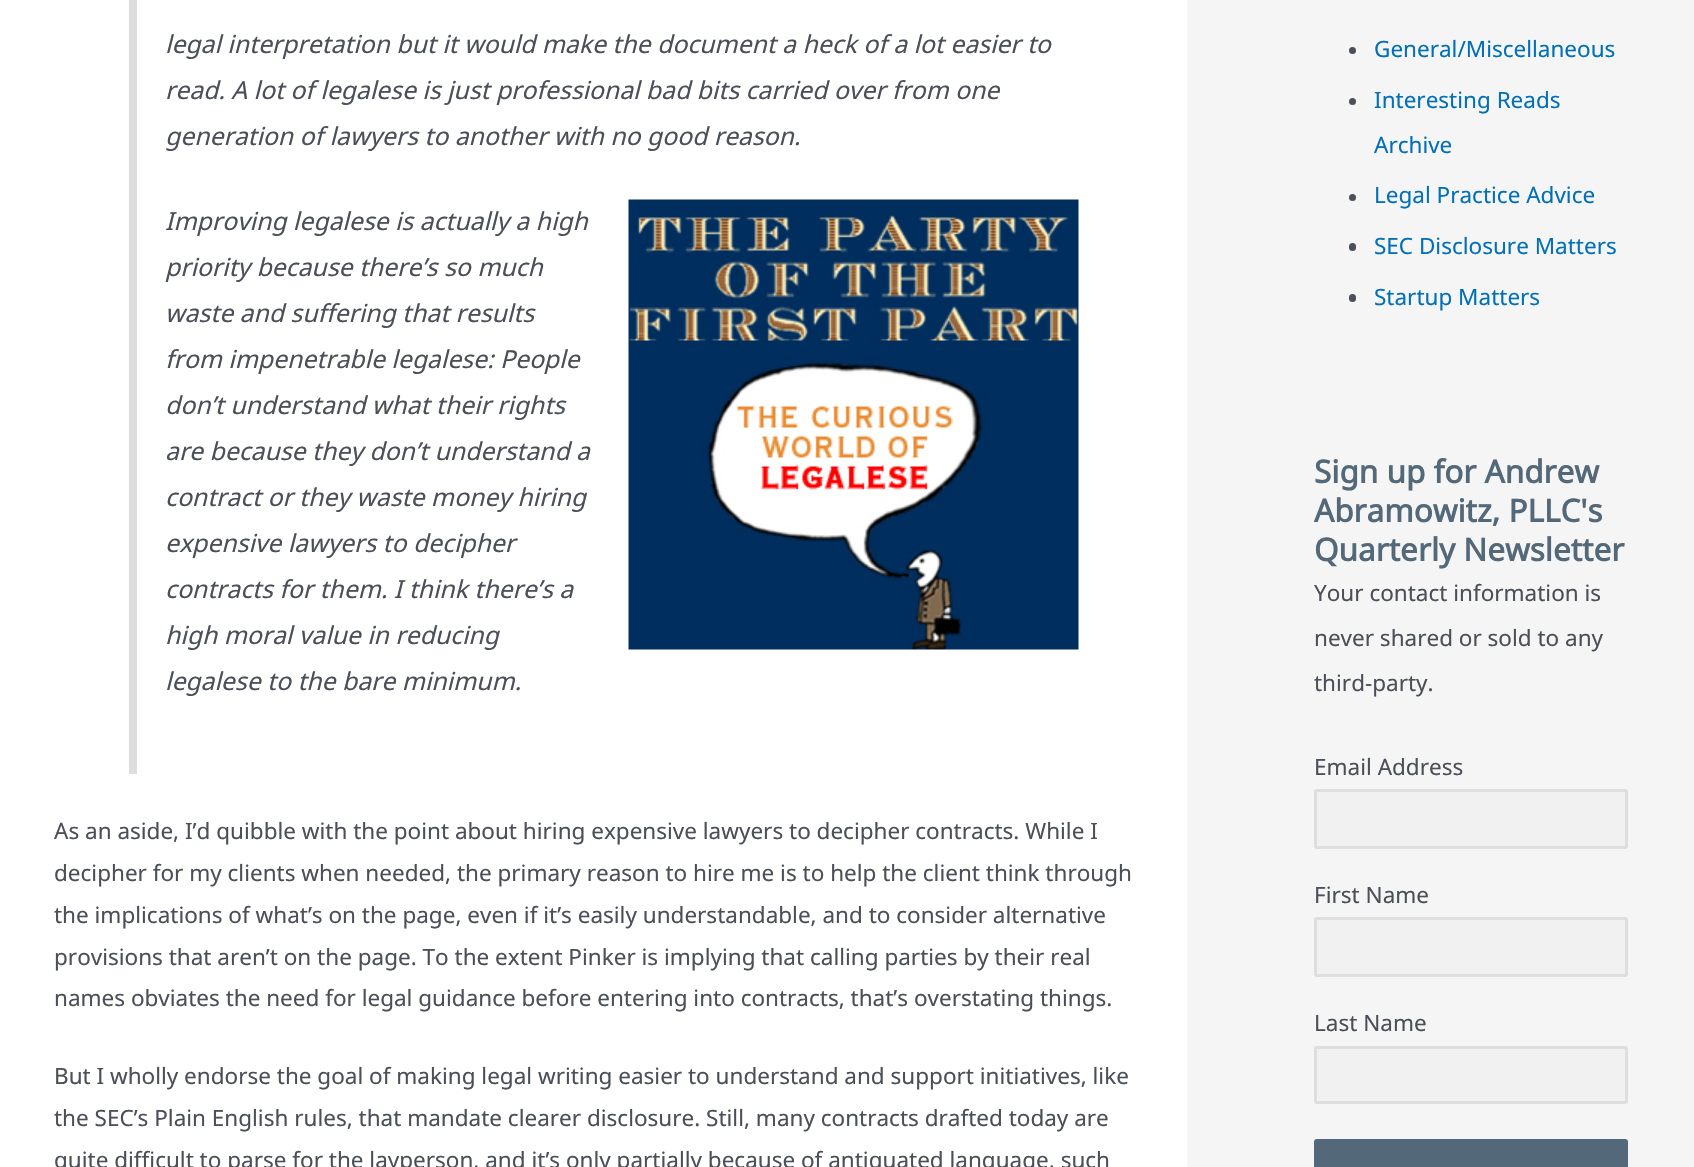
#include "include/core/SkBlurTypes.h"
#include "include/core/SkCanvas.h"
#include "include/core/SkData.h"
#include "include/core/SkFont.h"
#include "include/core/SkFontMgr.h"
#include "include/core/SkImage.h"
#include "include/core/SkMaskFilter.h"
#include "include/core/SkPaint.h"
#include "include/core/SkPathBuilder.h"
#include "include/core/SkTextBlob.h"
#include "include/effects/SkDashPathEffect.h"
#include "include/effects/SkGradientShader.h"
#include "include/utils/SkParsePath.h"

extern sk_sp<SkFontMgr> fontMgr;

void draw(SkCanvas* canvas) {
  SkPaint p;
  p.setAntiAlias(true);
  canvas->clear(SkColorSetRGB(245, 245, 245));
  p.setColor(SK_ColorWHITE);
  canvas->drawRect(SkRect::MakeLTRB(0, 0, 1187, 1167), p);
  p.setColor(SkColorSetRGB(221, 221, 221));
  canvas->drawRect(SkRect::MakeLTRB(129, 0, 137, 774), p);
  canvas->drawImageRect(SkImages::DeferredFromEncodedData(SkData::MakeFromFileName("images/1.png")), SkRect::MakeLTRB(628, 199, 1079, 650), SkSamplingOptions());
  p.setColor(SkColorSetRGB(75, 79, 88));
  canvas->drawCircle(1352.5f, 50.5f, 3.5f, p);
  canvas->drawCircle(1352.5f, 101.5f, 3.5f, p);
  canvas->drawCircle(1352.5f, 197.5f, 3.5f, p);
  canvas->drawRoundRect(SkRect::MakeLTRB(1349, 243, 1356, 251), 3.5f, 3.5f, p);
  canvas->drawRoundRect(SkRect::MakeLTRB(1349, 294, 1356, 302), 3.5f, 3.5f, p);
  p.setColor(SkColorSetRGB(241, 241, 241));
  canvas->drawRoundRect(SkRect::MakeLTRB(1315.5f, 790.5f, 1626.5f, 847.5f), 1.5f, 1.5f, p);
  p.setStyle(SkPaint::kStroke_Style);
  p.setStrokeWidth(3);
  p.setColor(SkColorSetRGB(222, 222, 222));
  canvas->drawRoundRect(SkRect::MakeLTRB(1315.5f, 790.5f, 1626.5f, 847.5f), 1.5f, 1.5f, p);
  p.setStyle(SkPaint::kFill_Style);
  p.setColor(SkColorSetRGB(241, 241, 241));
  canvas->drawRoundRect(SkRect::MakeLTRB(1315.5f, 918.5f, 1626.5f, 975.5f), 1.5f, 1.5f, p);
  p.setStyle(SkPaint::kStroke_Style);
  p.setColor(SkColorSetRGB(222, 222, 222));
  canvas->drawRoundRect(SkRect::MakeLTRB(1315.5f, 918.5f, 1626.5f, 975.5f), 1.5f, 1.5f, p);
  p.setStyle(SkPaint::kFill_Style);
  p.setColor(SkColorSetRGB(241, 241, 241));
  canvas->drawRoundRect(SkRect::MakeLTRB(1315.5f, 1047.5f, 1626.5f, 1102.5f), 1.5f, 1.5f, p);
  p.setStyle(SkPaint::kStroke_Style);
  p.setColor(SkColorSetRGB(222, 222, 222));
  canvas->drawRoundRect(SkRect::MakeLTRB(1315.5f, 1047.5f, 1626.5f, 1102.5f), 1.5f, 1.5f, p);
  p.setStyle(SkPaint::kFill_Style);
  p.setColor(SkColorSetRGB(83, 104, 120));
  canvas->drawRoundRect(SkRect::MakeLTRB(1314, 1139, 1628, 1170), 3, 3, p);
  SkFont font1(fontMgr->matchFamilyStyle("Noto Sans", SkFontStyle::Italic()), 24.75f);
  font1.setSubpixel(true);
  p.setColor(SkColorSetRGB(75, 79, 88));
  canvas->drawString("legal interpretation but it would make the document a heck of a lot easier to", 165, 53, font1, p);
  canvas->drawString("read. A lot of legalese is just professional bad bits carried over from one", 165, 99, font1, p);
  canvas->drawString("generation of lawyers to another with no good reason.", 165, 145, font1, p);
  canvas->drawString("Improving legalese is actually a high", 165, 230, font1, p);
  canvas->drawString("priority because there’s so much", 165, 276, font1, p);
  canvas->drawString("waste and suffering that results", 165, 322, font1, p);
  canvas->drawString("from impenetrable legalese: People", 165, 368, font1, p);
  canvas->drawString("don’t understand what their rights", 165, 414, font1, p);
  canvas->drawString("are because they don’t understand a", 165, 460, font1, p);
  canvas->drawString("contract or they waste money hiring", 165, 506, font1, p);
  canvas->drawString("expensive lawyers to decipher", 165, 552, font1, p);
  canvas->drawString("contracts for them. I think there’s a", 165, 598, font1, p);
  canvas->drawString("high moral value in reducing", 165, 644, font1, p);
  canvas->drawString("legalese to the bare minimum.", 165, 690, font1, p);
  SkFont font2(fontMgr->matchFamilyStyle("Noto Sans", SkFontStyle::Normal()), 22.5f);
  font2.setSubpixel(true);
  canvas->drawString("As an aside, I’d quibble with the point about hiring expensive lawyers to decipher contracts. While I", 54, 839, font2, p);
  canvas->drawString("decipher for my clients when needed, the primary reason to hire me is to help the client think through", 54, 881, font2, p);
  canvas->drawString("the implications of what’s on the page, even if it’s easily understandable, and to consider alternative", 54, 923, font2, p);
  canvas->drawString("provisions that aren’t on the page. To the extent Pinker is implying that calling parties by their real", 54, 965, font2, p);
  canvas->drawString("names obviates the need for legal guidance before entering into contracts, that’s overstating things.", 54, 1006, font2, p);
  canvas->drawString("But I wholly endorse the goal of making legal writing easier to understand and support initiatives, like", 54, 1084, font2, p);
  canvas->drawString("the SEC’s Plain English rules, that mandate clearer disclosure. Still, many contracts drafted today are", 54, 1126, font2, p);
  canvas->drawString("quite difficult to parse for the layperson, and it’s only partially because of antiquated language, such", 54, 1168, font2, p);
  p.setColor(SkColorSetRGB(1, 112, 185));
  canvas->drawString("General/Miscellaneous", 1374, 57, font2, p);
  canvas->drawString("Interesting Reads", 1374, 108, font2, p);
  canvas->drawString("Archive", 1374, 153, font2, p);
  canvas->drawString("Legal Practice Advice", 1374, 203, font2, p);
  canvas->drawString("SEC Disclosure Matters", 1374, 254, font2, p);
  canvas->drawString("Startup Matters", 1374, 305, font2, p);
  SkFont font3(fontMgr->matchFamilyStyle("Noto Sans", SkFontStyle::Bold()), 31.5f);
  font3.setSubpixel(true);
  p.setColor(SkColorSetRGB(83, 104, 120));
  canvas->drawString("Sign up for Andrew", 1314, 483, font3, p);
  canvas->drawString("Abramowitz, PLLC's", 1314, 522, font3, p);
  canvas->drawString("Quarterly Newsletter", 1314, 561, font3, p);
  p.setColor(SkColorSetRGB(75, 79, 88));
  canvas->drawString("Your contact information is", 1314, 601, font2, p);
  canvas->drawString("never shared or sold to any", 1314, 646, font2, p);
  canvas->drawString("third-party.", 1314, 691, font2, p);
  canvas->drawString("Email Address", 1314, 775, font2, p);
  canvas->drawString("First Name", 1314, 903, font2, p);
  canvas->drawString("Last Name", 1314, 1031, font2, p);
}
